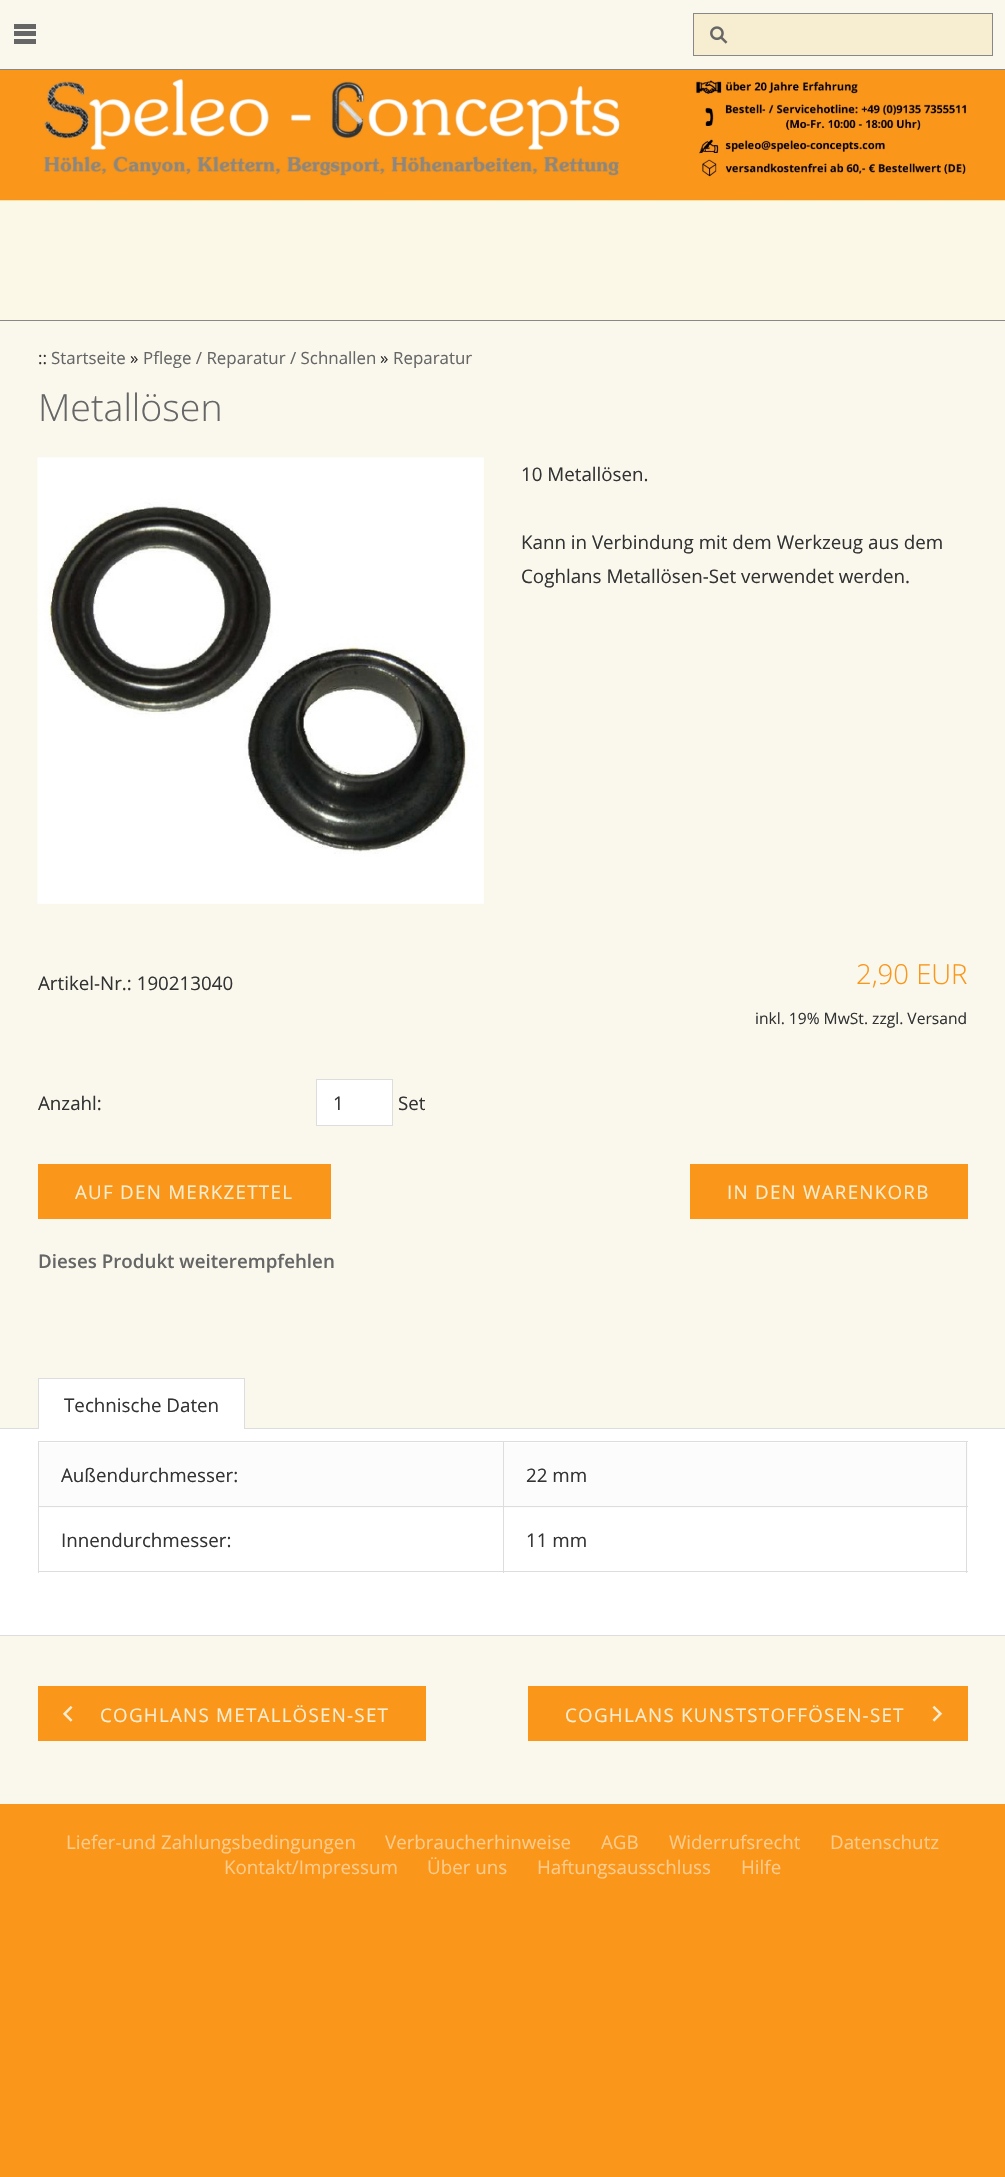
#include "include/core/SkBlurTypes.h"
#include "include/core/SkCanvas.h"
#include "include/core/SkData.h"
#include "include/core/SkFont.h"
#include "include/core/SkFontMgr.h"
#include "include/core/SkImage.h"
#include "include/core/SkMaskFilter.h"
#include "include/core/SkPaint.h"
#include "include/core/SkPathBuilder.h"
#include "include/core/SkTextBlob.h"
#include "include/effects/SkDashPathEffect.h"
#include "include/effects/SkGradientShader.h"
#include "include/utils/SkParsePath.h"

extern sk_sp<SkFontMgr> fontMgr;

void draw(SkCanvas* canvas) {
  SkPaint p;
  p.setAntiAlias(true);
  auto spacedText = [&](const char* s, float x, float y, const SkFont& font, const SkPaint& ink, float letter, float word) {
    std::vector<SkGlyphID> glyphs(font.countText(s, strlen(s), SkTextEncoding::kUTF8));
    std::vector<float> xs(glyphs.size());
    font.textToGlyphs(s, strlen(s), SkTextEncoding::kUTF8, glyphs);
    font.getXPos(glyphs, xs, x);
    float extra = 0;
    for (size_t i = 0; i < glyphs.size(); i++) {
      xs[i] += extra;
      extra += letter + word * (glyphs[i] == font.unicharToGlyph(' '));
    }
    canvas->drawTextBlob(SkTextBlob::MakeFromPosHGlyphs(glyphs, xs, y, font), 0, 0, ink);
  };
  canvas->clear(SkColorSetRGB(250, 150, 25));
  p.setColor(SkColorSetRGB(250, 248, 237));
  canvas->drawRect(SkRect::MakeLTRB(0, 0, 1005, 69), p);
  canvas->drawImageRect(SkImages::DeferredFromEncodedData(SkData::MakeFromFileName("images/1.png")), SkRect::MakeLTRB(14, 24, 36, 44), SkSamplingOptions());
  p.setColor(SkColorSetRGB(247, 237, 208));
  canvas->drawRect(SkRect::MakeLTRB(694, 14, 992, 55), p);
  canvas->drawImageRect(SkImages::DeferredFromEncodedData(SkData::MakeFromFileName("images/2.png")), SkRect::MakeLTRB(710, 26, 728, 44), SkSamplingOptions());
  p.setStyle(SkPaint::kStroke_Style);
  p.setStrokeWidth(1);
  p.setColor(SkColorSetRGB(136, 136, 136));
  canvas->drawRect(SkRect::MakeLTRB(693.5f, 13.5f, 992.5f, 55.5f), p);
  p.setStyle(SkPaint::kFill_Style);
  canvas->drawRect(SkRect::MakeLTRB(0, 69, 1005, 70), p);
  canvas->drawRect(SkRect::MakeLTRB(0, 320, 1005, 321), p);
  canvas->drawImageRect(SkImages::DeferredFromEncodedData(SkData::MakeFromFileName("images/3.png")), SkRect::MakeLTRB(0, 78, 1005, 320), SkSamplingOptions());
  p.setColor(SkColorSetRGB(250, 248, 237));
  canvas->drawRect(SkRect::MakeLTRB(0, 321, 1005, 1804), p);
  canvas->drawImageRect(SkImages::DeferredFromEncodedData(SkData::MakeFromFileName("images/4.png")), SkRect::MakeLTRB(37, 457, 484, 904), SkSamplingOptions());
  p.setColor(SK_ColorWHITE);
  canvas->drawRect(SkRect::MakeLTRB(316.5f, 1079.5f, 392.5f, 1125.5f), p);
  p.setStyle(SkPaint::kStroke_Style);
  p.setColor(SkColorSetRGB(221, 221, 221));
  canvas->drawRect(SkRect::MakeLTRB(316.5f, 1079.5f, 392.5f, 1125.5f), p);
  p.setStyle(SkPaint::kFill_Style);
  p.setColor(SkColorSetRGB(250, 150, 25));
  canvas->drawRect(SkRect::MakeLTRB(38, 1164, 331, 1219), p);
  canvas->drawRect(SkRect::MakeLTRB(690, 1164, 968, 1219), p);
  p.setColor(SkColorSetRGB(221, 221, 221));
  canvas->drawRect(SkRect::MakeLTRB(0, 1428, 1005, 1429), p);
  p.setColor(SK_ColorWHITE);
  canvas->drawRect(SkRect::MakeLTRB(39, 1379, 244, 1429), p);
  p.setColor(SkColorSetRGB(221, 221, 221));
  canvas->drawRect(SkRect::MakeLTRB(38, 1378, 245, 1379), p);
  canvas->drawRect(SkRect::MakeLTRB(244, 1378, 245, 1429), p);
  canvas->drawRect(SkRect::MakeLTRB(38, 1378, 39, 1429), p);
  p.setColor(SK_ColorWHITE);
  canvas->drawRect(SkRect::MakeLTRB(0, 1429, 1005, 1635), p);
  p.setColor(SkColorSetRGB(221, 221, 221));
  canvas->drawRect(SkRect::MakeLTRB(0, 1635, 1005, 1636), p);
  canvas->drawRect(SkRect::MakeLTRB(38, 1441, 968, 1442), p);
  p.setColor(SkColorSetRGB(252, 252, 252));
  canvas->drawRect(SkRect::MakeLTRB(39, 1443, 968, 1508), p);
  p.setColor(SkColorSetRGB(221, 221, 221));
  canvas->drawRect(SkRect::MakeLTRB(966, 1441, 967, 1573), p);
  canvas->drawRect(SkRect::MakeLTRB(38, 1571, 968, 1572), p);
  canvas->drawRect(SkRect::MakeLTRB(38, 1441, 39, 1573), p);
  canvas->drawRect(SkRect::MakeLTRB(503, 1506, 968, 1507), p);
  canvas->drawRect(SkRect::MakeLTRB(503, 1506, 504, 1573), p);
  canvas->drawRect(SkRect::MakeLTRB(38, 1506, 504, 1507), p);
  canvas->drawRect(SkRect::MakeLTRB(503, 1441, 504, 1508), p);
  p.setColor(SkColorSetRGB(250, 150, 25));
  canvas->drawRect(SkRect::MakeLTRB(38, 1686, 426, 1741), p);
  canvas->drawImageRect(SkImages::DeferredFromEncodedData(SkData::MakeFromFileName("images/5.png")), SkRect::MakeLTRB(63, 1705, 73, 1722), SkSamplingOptions());
  canvas->drawRect(SkRect::MakeLTRB(528, 1686, 968, 1741), p);
  canvas->drawImageRect(SkImages::DeferredFromEncodedData(SkData::MakeFromFileName("images/6.png")), SkRect::MakeLTRB(932, 1705, 943, 1722), SkSamplingOptions());
  SkFont font1(fontMgr->matchFamilyStyle("Open Sans", SkFontStyle::Normal()), 16.9f);
  font1.setSubpixel(true);
  p.setColor(SkColorSetRGB(51, 51, 51));
  canvas->drawString("::", 38, 364, font1, p);
  p.setColor(SkColorSetRGB(102, 102, 102));
  canvas->drawString("Startseite", 51, 364, font1, p);
  p.setColor(SkColorSetRGB(51, 51, 51));
  canvas->drawString("»", 130, 364, font1, p);
  p.setColor(SkColorSetRGB(102, 102, 102));
  canvas->drawString("Pflege / Reparatur / Schnallen", 143, 364, font1, p);
  p.setColor(SkColorSetRGB(51, 51, 51));
  canvas->drawString("»", 380, 364, font1, p);
  p.setColor(SkColorSetRGB(102, 102, 102));
  canvas->drawString("Reparatur", 393, 364, font1, p);
  SkFont font2(fontMgr->matchFamilyStyle("Open Sans", SkFontStyle(300, SkFontStyle::kNormal_Width, SkFontStyle::kUpright_Slant)), 37.5f);
  font2.setSubpixel(true);
  canvas->drawString("Metallösen", 38, 421, font2, p);
  SkFont font3(fontMgr->matchFamilyStyle("Open Sans", SkFontStyle::Normal()), 18.75f);
  font3.setSubpixel(true);
  p.setColor(SkColorSetRGB(51, 51, 51));
  canvas->drawString("10 Metallösen.", 521, 481, font3, p);
  canvas->drawString("Kann in Verbindung mit dem Werkzeug aus dem", 521, 549, font3, p);
  canvas->drawString("Coghlans Metallösen-Set verwendet werden.", 521, 583, font3, p);
  canvas->drawString("Artikel-Nr.: 190213040", 38, 990, font3, p);
  SkFont font4(fontMgr->matchFamilyStyle("Open Sans", SkFontStyle(300, SkFontStyle::kNormal_Width, SkFontStyle::kUpright_Slant)), 27.5f);
  font4.setSubpixel(true);
  p.setColor(SkColorSetRGB(250, 150, 25));
  canvas->drawString("2,90 EUR", 856, 984, font4, p);
  SkFont font5(fontMgr->matchFamilyStyle("Open Sans", SkFontStyle::Normal()), 15.6f);
  font5.setSubpixel(true);
  p.setColor(SkColorSetRGB(51, 51, 51));
  canvas->drawString("inkl. 19% MwSt. zzgl. Versand", 755, 1024, font5, p);
  canvas->drawString("Anzahl:", 38, 1110, font3, p);
  canvas->drawString("1", 333, 1110, font3, p);
  canvas->drawString("Set", 398, 1110, font3, p);
  p.setColor(SkColorSetRGB(247, 237, 208));
  spacedText("AUF DEN MERKZETTEL", 75, 1199, font3, p, 1.25f, 0);
  spacedText("IN DEN WARENKORB", 727, 1199, font3, p, 1.25f, 0);
  SkFont font6(fontMgr->matchFamilyStyle("Open Sans", SkFontStyle(600, SkFontStyle::kNormal_Width, SkFontStyle::kUpright_Slant)), 18.75f);
  font6.setSubpixel(true);
  p.setColor(SkColorSetRGB(102, 102, 102));
  canvas->drawString("Dieses Produkt weiterempfehlen", 38, 1268, font6, p);
  p.setColor(SkColorSetRGB(51, 51, 51));
  canvas->drawString("Technische Daten", 64, 1412, font3, p);
  canvas->drawString("Außendurchmesser:", 61, 1482, font3, p);
  canvas->drawString("22 mm", 526, 1482, font3, p);
  canvas->drawString("Innendurchmesser:", 61, 1547, font3, p);
  canvas->drawString("11 mm", 526, 1547, font3, p);
  p.setColor(SkColorSetRGB(247, 237, 208));
  spacedText("COGHLANS METALLÖSEN-SET", 100, 1722, font3, p, 1.25f, 0);
  spacedText("COGHLANS KUNSTSTOFFÖSEN-SET", 565, 1722, font3, p, 1.25f, 0);
  p.setColor(SkColorSetRGB(253, 203, 140));
  canvas->drawString("Liefer-und Zahlungsbedingungen", 66, 1849, font3, p);
  canvas->drawString("Verbraucherhinweise", 385, 1849, font3, p);
  canvas->drawString("AGB", 601, 1849, font3, p);
  canvas->drawString("Widerrufsrecht", 669, 1849, font3, p);
  canvas->drawString("Datenschutz", 830, 1849, font3, p);
  canvas->drawString("Kontakt/Impressum", 224, 1874, font3, p);
  canvas->drawString("Über uns", 427, 1874, font3, p);
  canvas->drawString("Haftungsausschluss", 537, 1874, font3, p);
  canvas->drawString("Hilfe", 741, 1874, font3, p);
}
